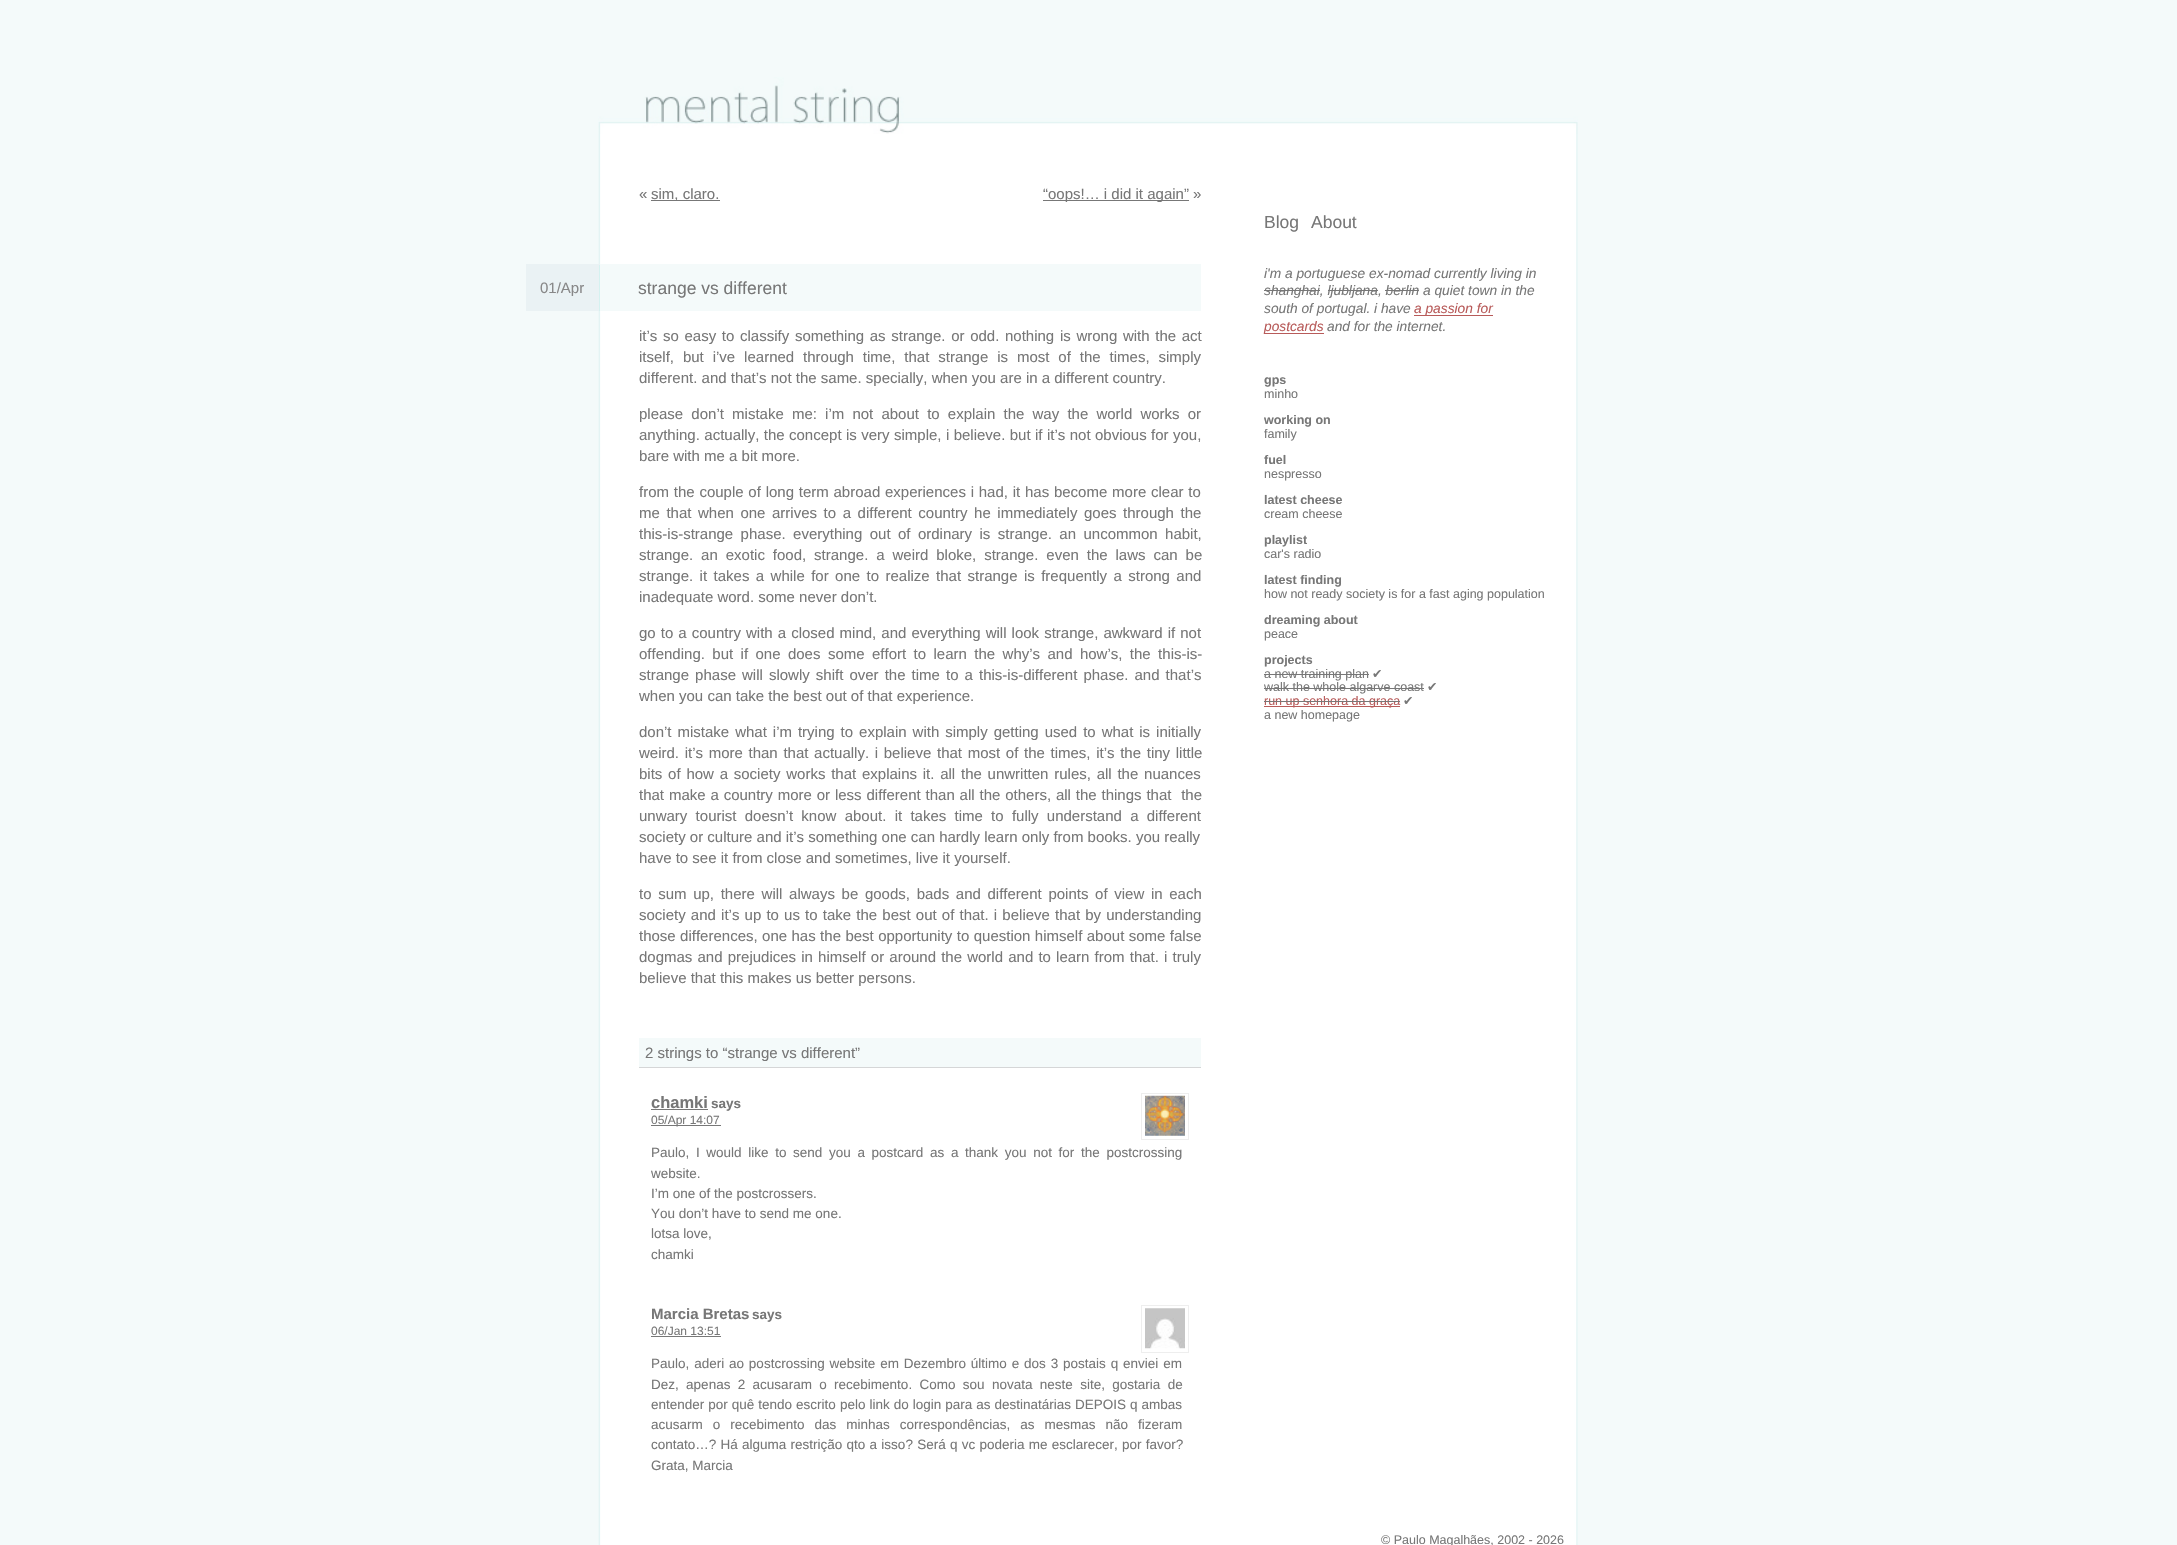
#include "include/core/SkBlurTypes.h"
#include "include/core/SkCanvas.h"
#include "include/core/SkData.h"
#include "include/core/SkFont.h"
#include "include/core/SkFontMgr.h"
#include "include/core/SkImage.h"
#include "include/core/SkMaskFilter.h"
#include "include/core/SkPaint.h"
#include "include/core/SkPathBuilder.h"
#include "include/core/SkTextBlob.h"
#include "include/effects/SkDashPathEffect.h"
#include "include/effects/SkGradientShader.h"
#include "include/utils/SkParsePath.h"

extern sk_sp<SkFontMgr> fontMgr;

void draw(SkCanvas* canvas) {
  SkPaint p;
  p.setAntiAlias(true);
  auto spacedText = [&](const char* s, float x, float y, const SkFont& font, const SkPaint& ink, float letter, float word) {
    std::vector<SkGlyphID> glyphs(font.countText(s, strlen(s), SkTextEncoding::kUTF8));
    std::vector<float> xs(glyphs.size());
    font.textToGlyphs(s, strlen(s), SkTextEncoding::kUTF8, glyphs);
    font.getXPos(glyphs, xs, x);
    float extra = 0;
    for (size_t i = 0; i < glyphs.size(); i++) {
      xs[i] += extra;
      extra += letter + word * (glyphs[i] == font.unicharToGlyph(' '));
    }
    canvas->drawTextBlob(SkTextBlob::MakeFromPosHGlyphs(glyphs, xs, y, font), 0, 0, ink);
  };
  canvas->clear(SkColorSetRGB(244, 250, 250));
  canvas->drawImageRect(SkImages::DeferredFromEncodedData(SkData::MakeFromFileName("images/1.png")), SkRect::MakeLTRB(598, 134, 1578, 1545), SkSamplingOptions());
  canvas->drawImageRect(SkImages::DeferredFromEncodedData(SkData::MakeFromFileName("images/2.png")), SkRect::MakeLTRB(598, 77, 1578, 134), SkSamplingOptions());
  p.setColor(SkColorSetRGB(119, 119, 119));
  canvas->drawRect(SkRect::MakeLTRB(651, 200, 720, 201), p);
  canvas->drawRect(SkRect::MakeLTRB(1043, 200, 1189, 201), p);
  p.setColor(SkColorSetRGB(244, 250, 250));
  canvas->drawRect(SkRect::MakeLTRB(600, 264, 1201, 311), p);
  p.setColor(SkColorSetRGB(234, 242, 244));
  canvas->drawRect(SkRect::MakeLTRB(526, 264, 600, 311), p);
  p.setColor(SkColorSetRGB(213, 242, 240));
  canvas->drawRect(SkRect::MakeLTRB(599, 265, 600, 311), p);
  p.setColor(SkColorSetRGB(213, 214, 215));
  canvas->drawRect(SkRect::MakeLTRB(639, 1067, 1201, 1068), p);
  p.setColor(SkColorSetRGB(244, 250, 250));
  canvas->drawRect(SkRect::MakeLTRB(639, 1038, 1201, 1067), p);
  p.setColor(SkColorSetRGB(119, 119, 119));
  canvas->drawRect(SkRect::MakeLTRB(651, 1109, 708, 1110), p);
  p.setStyle(SkPaint::kStroke_Style);
  p.setStrokeWidth(1);
  p.setColor(SkColorSetRGB(238, 238, 238));
  canvas->drawRect(SkRect::MakeLTRB(1141.5f, 1093.5f, 1188.5f, 1139.5f), p);
  canvas->drawImageRect(SkImages::DeferredFromEncodedData(SkData::MakeFromFileName("images/3.png")), SkRect::MakeLTRB(1145, 1095, 1185, 1136), SkSamplingOptions());
  p.setStyle(SkPaint::kFill_Style);
  p.setColor(SkColorSetRGB(119, 119, 119));
  canvas->drawRect(SkRect::MakeLTRB(651, 1125, 721, 1126), p);
  p.setStyle(SkPaint::kStroke_Style);
  p.setColor(SkColorSetRGB(238, 238, 238));
  canvas->drawRect(SkRect::MakeLTRB(1141.5f, 1305.5f, 1188.5f, 1352.5f), p);
  canvas->drawImageRect(SkImages::DeferredFromEncodedData(SkData::MakeFromFileName("images/4.png")), SkRect::MakeLTRB(1145, 1308, 1185, 1349), SkSamplingOptions());
  p.setStyle(SkPaint::kFill_Style);
  p.setColor(SkColorSetRGB(119, 119, 119));
  canvas->drawRect(SkRect::MakeLTRB(651, 1336, 721, 1337), p);
  canvas->drawRect(SkRect::MakeLTRB(1264, 290, 1320, 291), p);
  canvas->drawRect(SkRect::MakeLTRB(1328, 290, 1378, 291), p);
  canvas->drawRect(SkRect::MakeLTRB(1385, 290, 1419, 291), p);
  p.setColor(SkColorSetRGB(184, 91, 90));
  canvas->drawRect(SkRect::MakeLTRB(1414, 315, 1493, 316), p);
  canvas->drawRect(SkRect::MakeLTRB(1264, 333, 1324, 334), p);
  p.setColor(SkColorSetRGB(119, 119, 119));
  canvas->drawRect(SkRect::MakeLTRB(1264, 674, 1369, 675), p);
  canvas->drawRect(SkRect::MakeLTRB(1264, 688, 1424, 689), p);
  p.setColor(SkColorSetRGB(184, 91, 90));
  canvas->drawRect(SkRect::MakeLTRB(1264, 706, 1400, 707), p);
  SkFont font1(fontMgr->matchFamilyStyle("Liberation Sans", SkFontStyle::Normal()), 15);
  font1.setSubpixel(true);
  p.setColor(SkColorSetRGB(119, 119, 119));
  canvas->drawString("«", 639, 199, font1, p);
  canvas->drawString("sim, claro.", 651, 199, font1, p);
  canvas->drawString("“oops!… i did it again” »", 1043, 199, font1, p);
  p.setColor(SkColorSetRGB(136, 136, 136));
  canvas->drawString("01/Apr", 540, 293, font1, p);
  SkFont font2(fontMgr->matchFamilyStyle("Liberation Sans", SkFontStyle::Normal()), 17.5f);
  font2.setSubpixel(true);
  p.setColor(SkColorSetRGB(119, 119, 119));
  canvas->drawString("strange vs different", 638, 294, font2, p);
  spacedText("it’s so easy to classify something as strange. or odd. nothing is wrong with the act", 639, 341, font1, p, 0, 1.5f);
  spacedText("itself, but i’ve learned through time, that strange is most of the times, simply", 639, 362, font1, p, 0, 4.75f);
  canvas->drawString("different. and that’s not the same. specially, when you are in a different country.", 639, 383, font1, p);
  spacedText("please don’t mistake me: i’m not about to explain the way the world works or", 639, 419, font1, p, 0, 4);
  spacedText("anything. actually, the concept is very simple, i believe. but if it’s not obvious for you,", 639, 440, font1, p, 0, 0.25f);
  canvas->drawString("bare with me a bit more.", 639, 461, font1, p);
  spacedText("from the couple of long term abroad experiences i had, it has become more clear to", 639, 497, font1, p, 0, 0.6f);
  spacedText("me that when one arrives to a different country he immediately goes through the", 639, 518, font1, p, 0, 2.4f);
  spacedText("this-is-strange phase. everything out of ordinary is strange. an uncommon habit,", 639, 539, font1, p, 0, 3.25f);
  spacedText("strange. an exotic food, strange. a weird bloke, strange. even the laws can be", 639, 560, font1, p, 0, 3.75f);
  spacedText("strange. it takes a while for one to realize that strange is frequently a strong and", 639, 581, font1, p, 0, 2.25f);
  canvas->drawString("inadequate word. some never don’t.", 639, 602, font1, p);
  spacedText("go to a country with a closed mind, and everything will look strange, awkward if not", 639, 638, font1, p, 0, 0.9f);
  spacedText("offending. but if one does some effort to learn the why’s and how’s, the this-is-", 639, 659, font1, p, 0, 3.25f);
  spacedText("strange phase will slowly shift over the time to a this-is-different phase. and that’s", 639, 680, font1, p, 0, 1.9f);
  canvas->drawString("when you can take the best out of that experience.", 639, 701, font1, p);
  spacedText("don’t mistake what i’m trying to explain with simply getting used to what is initially", 639, 737, font1, p, 0, 1.8f);
  spacedText("weird. it’s more than that actually. i believe that most of the times, it’s the tiny little", 639, 758, font1, p, 0, 1.5f);
  spacedText("bits of how a society works that explains it. all the unwritten rules, all the nuances", 639, 779, font1, p, 0, 1.6f);
  spacedText("that make a country more or less different than all the others, all the things that  the", 639, 800, font1, p, 0, 0.7f);
  spacedText("unwary tourist doesn’t know about. it takes time to fully understand a different", 639, 821, font1, p, 0, 4.1f);
  canvas->drawString("society or culture and it’s something one can hardly learn only from books. you really", 639, 842, font1, p);
  canvas->drawString("have to see it from close and sometimes, live it yourself.", 639, 863, font1, p);
  spacedText("to sum up, there will always be goods, bads and different points of view in each", 639, 899, font1, p, 0, 2.5f);
  spacedText("society and it’s up to us to take the best out of that. i believe that by understanding", 639, 920, font1, p, 0, 1);
  spacedText("those differences, one has the best opportunity to question himself about some false", 639, 941, font1, p, 0, 0.25f);
  spacedText("dogmas and prejudices in himself or around the world and to learn from that. i truly", 639, 962, font1, p, 0, 1);
  canvas->drawString("believe that this makes us better persons.", 639, 983, font1, p);
  canvas->drawString("2 strings to “strange vs different”", 645, 1058, font1, p);
  SkFont font3(fontMgr->matchFamilyStyle("Liberation Sans", SkFontStyle::Bold()), 16.5f);
  font3.setSubpixel(true);
  canvas->drawString("chamki", 651, 1108, font3, p);
  SkFont font4(fontMgr->matchFamilyStyle("Liberation Sans", SkFontStyle::Bold()), 13.5f);
  font4.setSubpixel(true);
  canvas->drawString("says", 711, 1108, font4, p);
  SkFont font5(fontMgr->matchFamilyStyle("Liberation Sans", SkFontStyle::Normal()), 12);
  font5.setSubpixel(true);
  canvas->drawString("05/Apr 14:07", 651, 1124, font5, p);
  SkFont font6(fontMgr->matchFamilyStyle("Liberation Sans", SkFontStyle::Normal()), 13.5f);
  font6.setSubpixel(true);
  spacedText("Paulo, I would like to send you a postcard as a thank you not for the postcrossing", 651, 1157, font6, p, 0, 2.9f);
  canvas->drawString("website.", 651, 1178, font6, p);
  canvas->drawString("I’m one of the postcrossers.", 651, 1198, font6, p);
  canvas->drawString("You don’t have to send me one.", 651, 1218, font6, p);
  canvas->drawString("lotsa love,", 651, 1238, font6, p);
  canvas->drawString("chamki", 651, 1259, font6, p);
  SkFont font7(fontMgr->matchFamilyStyle("Liberation Sans", SkFontStyle::Bold()), 15);
  font7.setSubpixel(true);
  canvas->drawString("Marcia Bretas", 651, 1319, font7, p);
  canvas->drawString("says", 752, 1319, font4, p);
  canvas->drawString("06/Jan 13:51", 651, 1335, font5, p);
  spacedText("Paulo, aderi ao postcrossing website em Dezembro último e dos 3 postais q enviei em", 651, 1368, font6, p, 0, 1.1f);
  spacedText("Dez, apenas 2 acusaram o recebimento. Como sou novata neste site, gostaria de", 651, 1389, font6, p, 0, 3.6f);
  spacedText("entender por quê tendo escrito pelo link do login para as destinatárias DEPOIS q ambas", 651, 1409, font6, p, 0, 0.25f);
  spacedText("acusarm o recebimento das minhas correspondências, as mesmas não fizeram", 651, 1429, font6, p, 0, 6.25f);
  spacedText("contato…? Há alguma restrição qto a isso? Será q vc poderia me esclarecer, por favor?", 651, 1449, font6, p, 0, 0.5f);
  canvas->drawString("Grata, Marcia", 651, 1470, font6, p);
  canvas->drawString("Blog", 1264, 228, font2, p);
  canvas->drawString("About", 1311, 228, font2, p);
  SkFont font8(fontMgr->matchFamilyStyle("Liberation Sans", SkFontStyle::Italic()), 13.75f);
  font8.setSubpixel(true);
  canvas->drawString("i'm a portuguese ex-nomad currently living in", 1264, 278, font8, p);
  canvas->drawString("shanghai, ljubljana, berlin a quiet town in the", 1264, 295, font8, p);
  canvas->drawString("south of portugal. i have", 1264, 313, font8, p);
  p.setColor(SkColorSetRGB(184, 91, 90));
  canvas->drawString("a passion for", 1414, 313, font8, p);
  canvas->drawString("postcards", 1264, 331, font8, p);
  p.setColor(SkColorSetRGB(119, 119, 119));
  canvas->drawString("and for the internet.", 1327, 331, font8, p);
  SkFont font9(fontMgr->matchFamilyStyle("Liberation Sans", SkFontStyle::Bold()), 12.5f);
  font9.setSubpixel(true);
  canvas->drawString("gps", 1264, 384, font9, p);
  SkFont font10(fontMgr->matchFamilyStyle("Liberation Sans", SkFontStyle::Normal()), 12.5f);
  font10.setSubpixel(true);
  canvas->drawString("minho", 1264, 398, font10, p);
  canvas->drawString("working on", 1264, 424, font9, p);
  canvas->drawString("family", 1264, 438, font10, p);
  canvas->drawString("fuel", 1264, 464, font9, p);
  canvas->drawString("nespresso", 1264, 478, font10, p);
  canvas->drawString("latest cheese", 1264, 504, font9, p);
  canvas->drawString("cream cheese", 1264, 518, font10, p);
  canvas->drawString("playlist", 1264, 544, font9, p);
  canvas->drawString("car's radio", 1264, 558, font10, p);
  canvas->drawString("latest finding", 1264, 584, font9, p);
  canvas->drawString("how not ready society is for a fast aging population", 1264, 598, font10, p);
  canvas->drawString("dreaming about", 1264, 624, font9, p);
  canvas->drawString("peace", 1264, 638, font10, p);
  canvas->drawString("projects", 1264, 664, font9, p);
  canvas->drawString("a new training plan", 1264, 678, font10, p);
  SkFont font11(fontMgr->matchFamilyStyle("DejaVu Sans", SkFontStyle::Normal()), 12.5f);
  font11.setSubpixel(true);
  canvas->drawString("✔", 1372, 678, font11, p);
  canvas->drawString("walk the whole algarve coast", 1264, 691, font10, p);
  canvas->drawString("✔", 1427, 691, font11, p);
  p.setColor(SkColorSetRGB(184, 91, 90));
  canvas->drawString("run up senhora da graça", 1264, 705, font10, p);
  p.setColor(SkColorSetRGB(119, 119, 119));
  canvas->drawRect(SkRect::MakeLTRB(1264, 701, 1400, 702), p);
  canvas->drawString("✔", 1403, 705, font11, p);
  canvas->drawString("a new homepage", 1264, 719, font10, p);
  canvas->drawString("© Paulo Magalhães, 2002 - 2026", 1381, 1544, font10, p);
}
